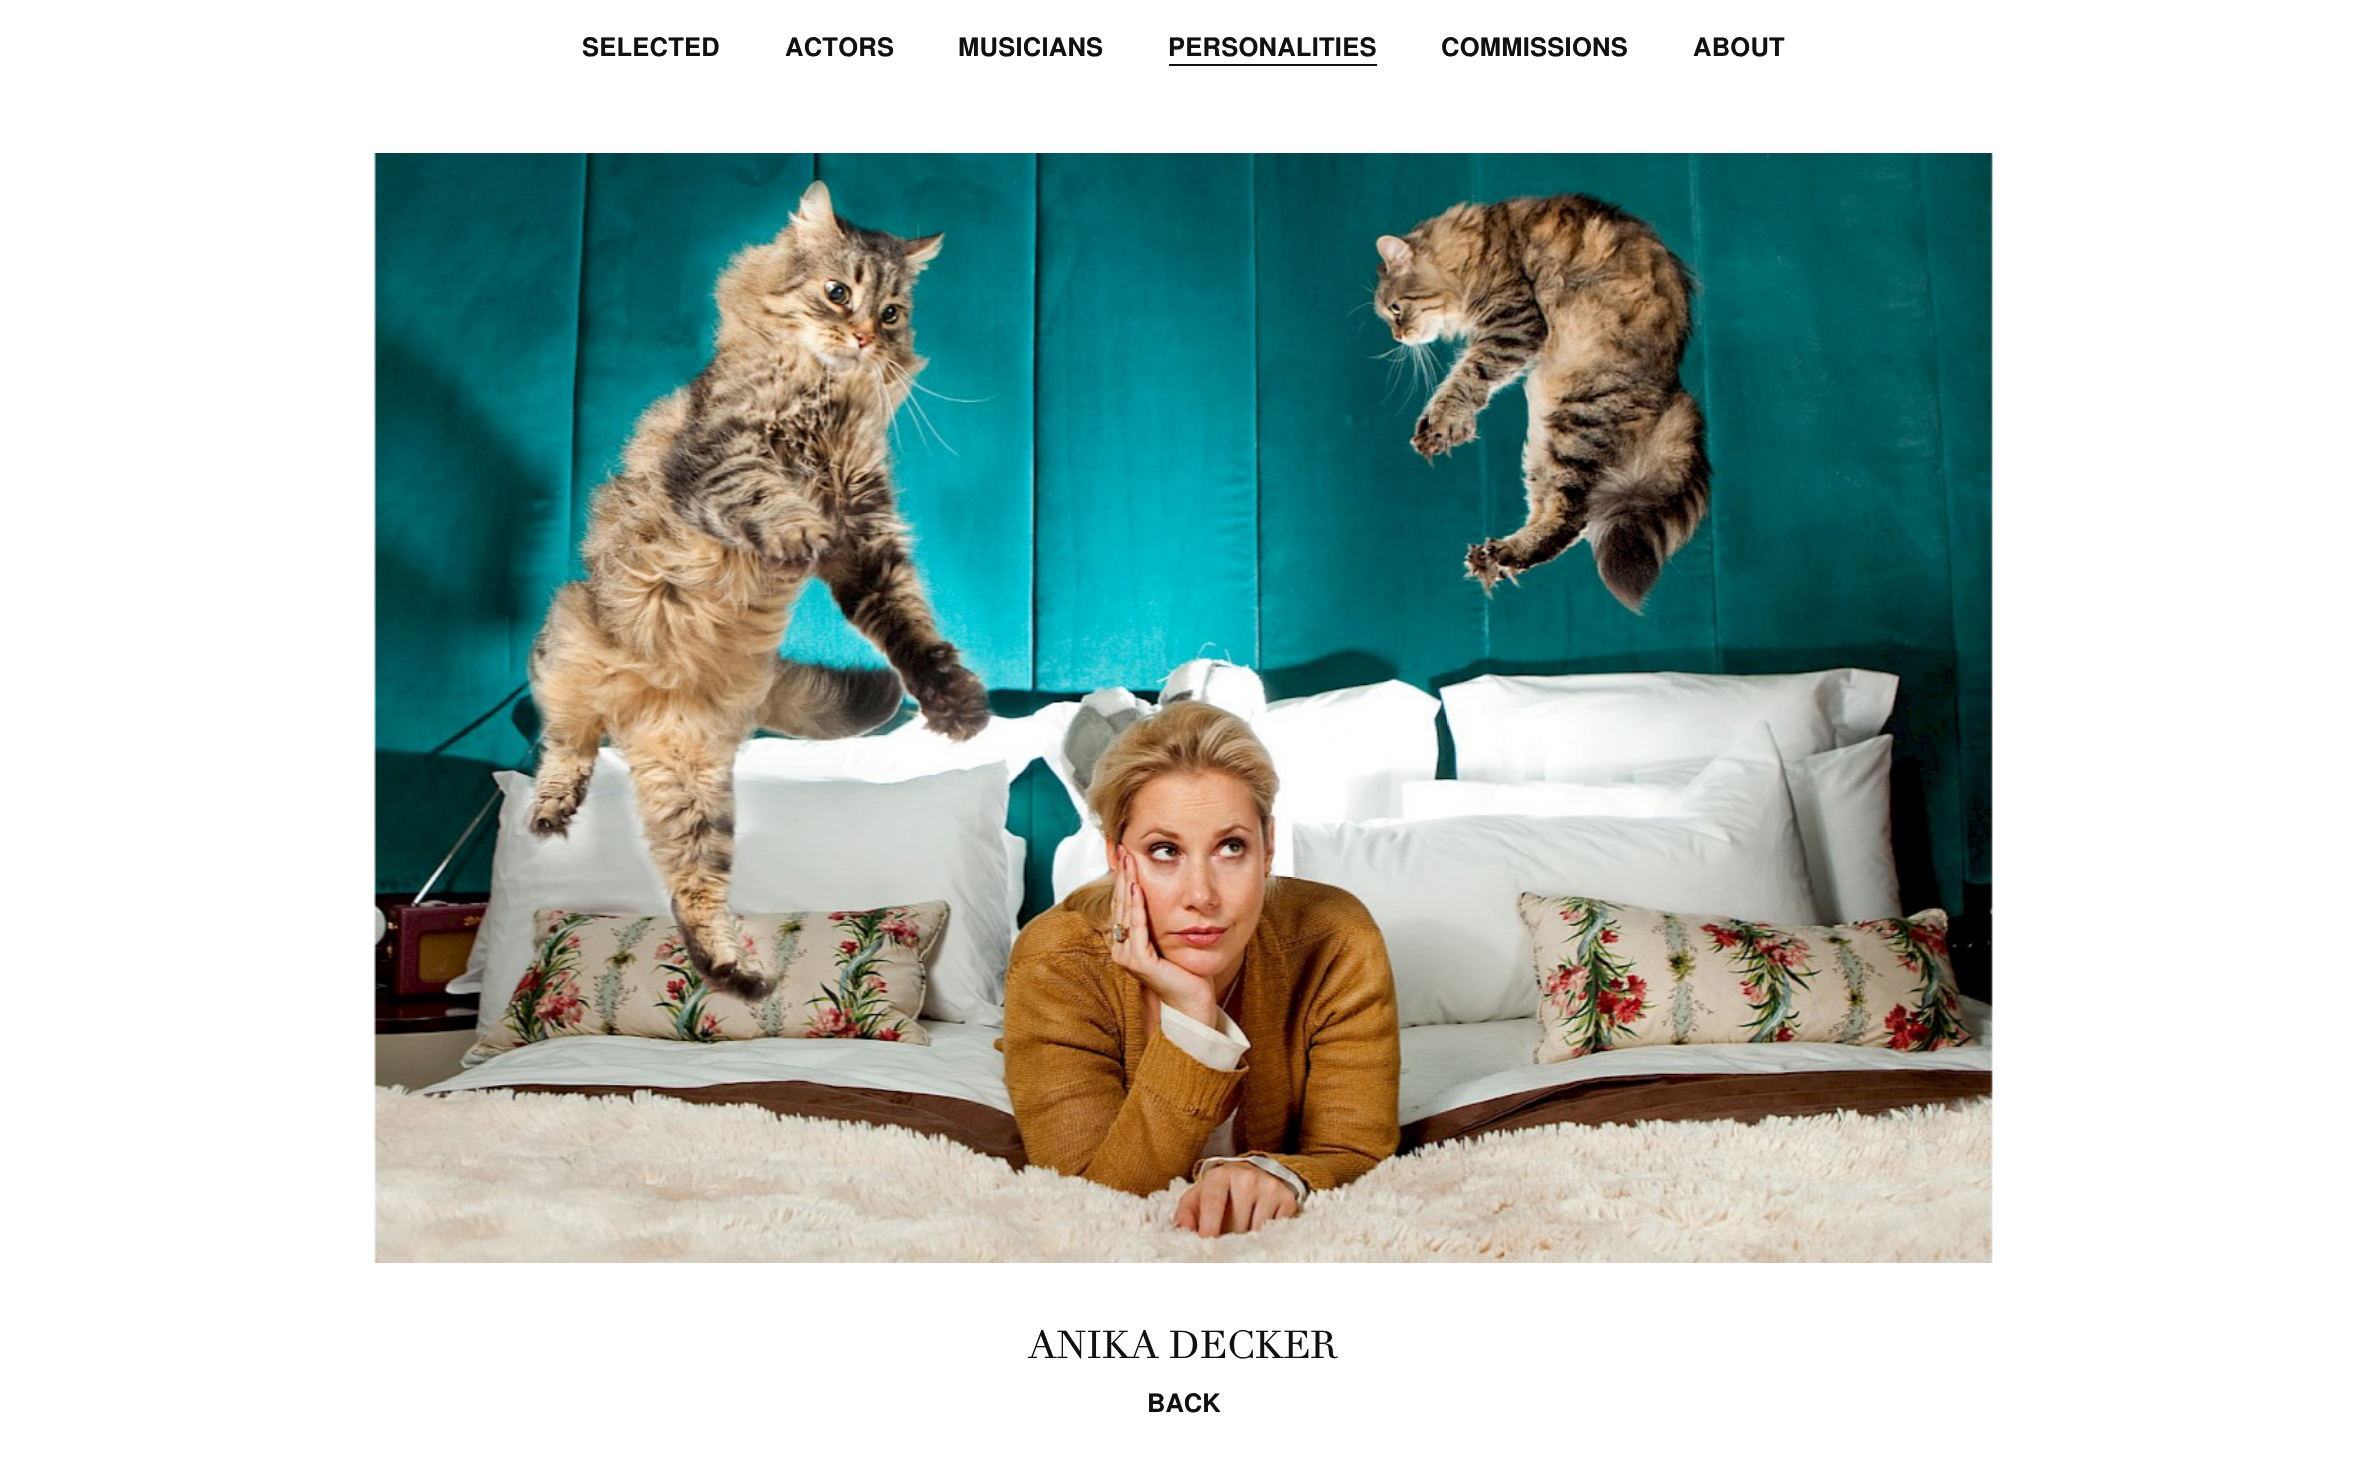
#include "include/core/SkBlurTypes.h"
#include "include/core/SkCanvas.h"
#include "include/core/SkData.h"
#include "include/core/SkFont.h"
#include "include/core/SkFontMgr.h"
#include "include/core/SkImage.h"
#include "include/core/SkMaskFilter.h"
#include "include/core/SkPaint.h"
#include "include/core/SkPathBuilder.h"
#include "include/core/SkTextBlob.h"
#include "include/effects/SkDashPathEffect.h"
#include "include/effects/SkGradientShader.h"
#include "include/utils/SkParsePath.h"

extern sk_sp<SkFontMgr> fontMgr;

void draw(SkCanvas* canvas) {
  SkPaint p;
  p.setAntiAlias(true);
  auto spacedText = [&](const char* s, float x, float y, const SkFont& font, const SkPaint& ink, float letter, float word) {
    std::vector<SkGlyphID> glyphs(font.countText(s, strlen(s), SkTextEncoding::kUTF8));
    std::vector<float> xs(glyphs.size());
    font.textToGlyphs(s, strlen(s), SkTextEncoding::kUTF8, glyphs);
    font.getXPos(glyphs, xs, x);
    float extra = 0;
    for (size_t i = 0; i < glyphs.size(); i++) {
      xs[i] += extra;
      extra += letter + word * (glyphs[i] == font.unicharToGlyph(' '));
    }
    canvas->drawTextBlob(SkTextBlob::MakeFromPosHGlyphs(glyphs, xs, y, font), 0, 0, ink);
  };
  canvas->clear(SK_ColorWHITE);
  p.setColor(SkColorSetRGB(17, 17, 17));
  canvas->drawRect(SkRect::MakeLTRB(1169, 64, 1377, 66), p);
  canvas->drawImageRect(SkImages::DeferredFromEncodedData(SkData::MakeFromFileName("images/1.png")), SkRect::MakeLTRB(374, 153, 1993, 1263), SkSamplingOptions());
  SkFont font1(fontMgr->matchFamilyStyle("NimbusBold", SkFontStyle::Bold()), 25.5f);
  font1.setSubpixel(true);
  spacedText("SELECTED", 582, 56, font1, p, 0.25f, 0);
  spacedText("ACTORS", 785, 56, font1, p, 0.25f, 0);
  spacedText("MUSICIANS", 958, 56, font1, p, 0.25f, 0);
  spacedText("PERSONALITIES", 1168, 56, font1, p, 0.25f, 0);
  spacedText("COMMISSIONS", 1441, 56, font1, p, 0.25f, 0);
  spacedText("ABOUT", 1693, 56, font1, p, 0.25f, 0);
  SkFont font2(fontMgr->matchFamilyStyle("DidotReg", SkFontStyle::Normal()), 38.25f);
  font2.setSubpixel(true);
  canvas->drawString("ANIKA DECKER", 1028, 1358, font2, p);
  canvas->drawString("BACK", 1147, 1412, font1, p);
}
